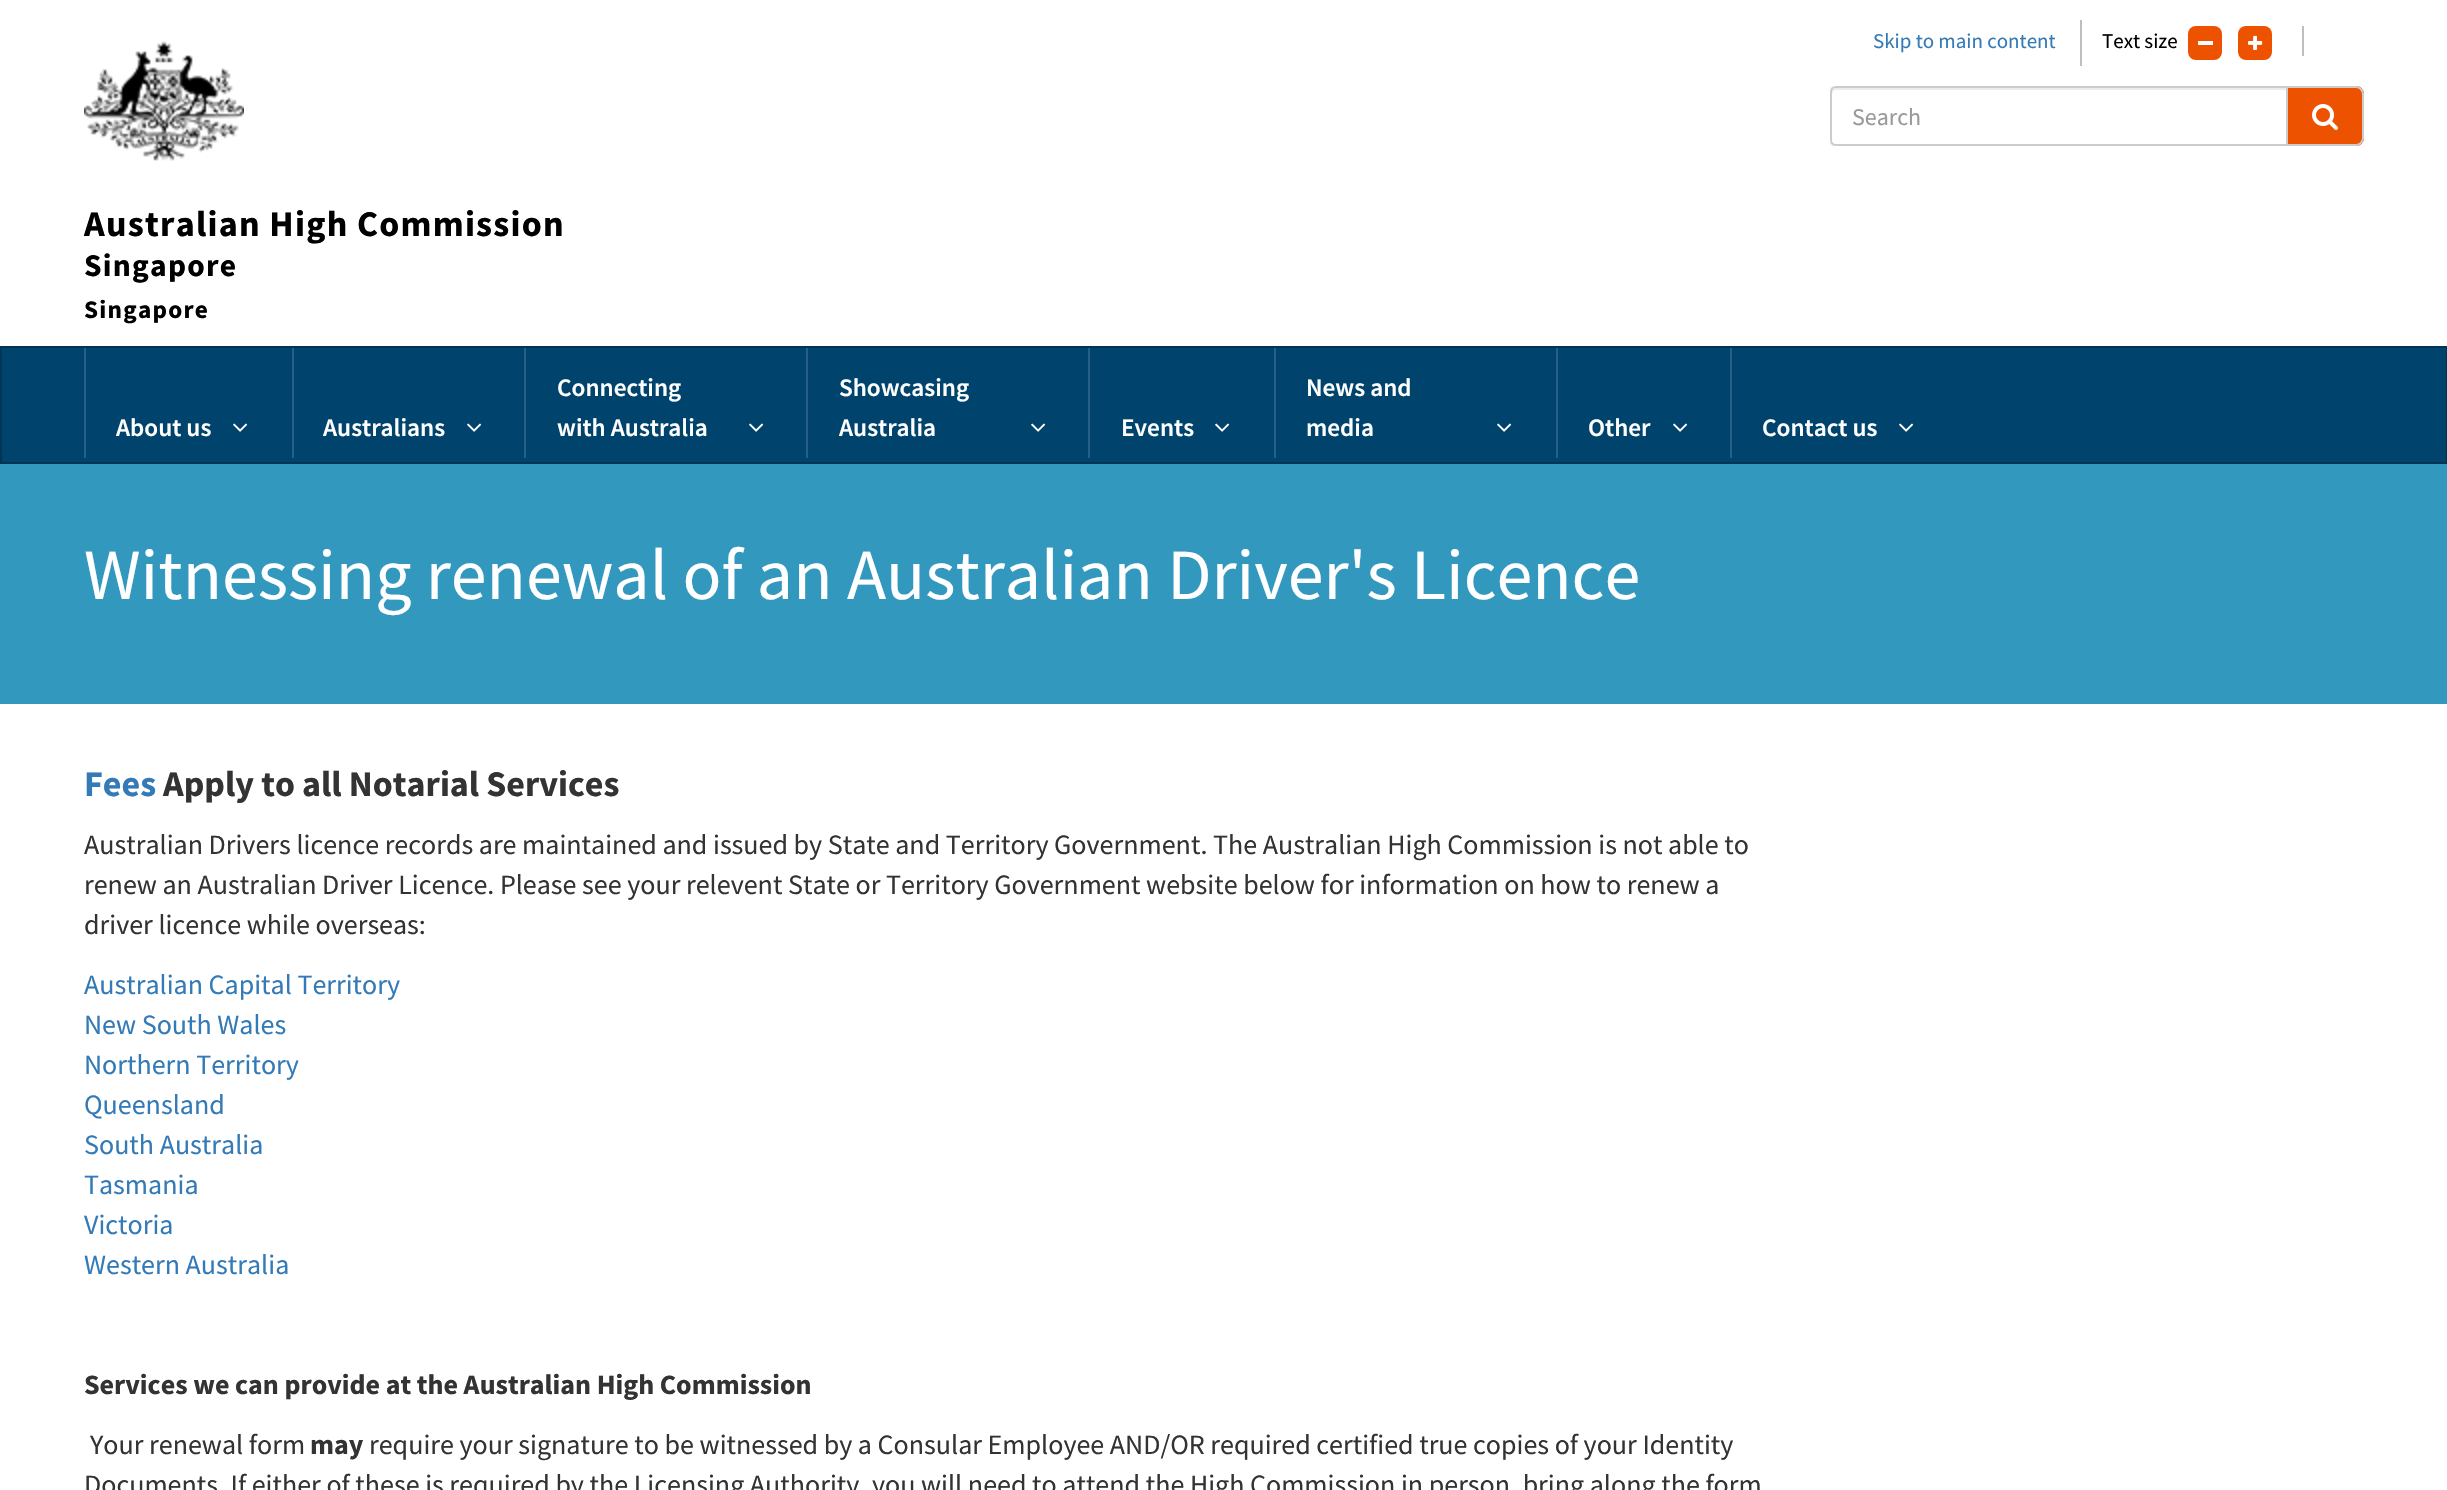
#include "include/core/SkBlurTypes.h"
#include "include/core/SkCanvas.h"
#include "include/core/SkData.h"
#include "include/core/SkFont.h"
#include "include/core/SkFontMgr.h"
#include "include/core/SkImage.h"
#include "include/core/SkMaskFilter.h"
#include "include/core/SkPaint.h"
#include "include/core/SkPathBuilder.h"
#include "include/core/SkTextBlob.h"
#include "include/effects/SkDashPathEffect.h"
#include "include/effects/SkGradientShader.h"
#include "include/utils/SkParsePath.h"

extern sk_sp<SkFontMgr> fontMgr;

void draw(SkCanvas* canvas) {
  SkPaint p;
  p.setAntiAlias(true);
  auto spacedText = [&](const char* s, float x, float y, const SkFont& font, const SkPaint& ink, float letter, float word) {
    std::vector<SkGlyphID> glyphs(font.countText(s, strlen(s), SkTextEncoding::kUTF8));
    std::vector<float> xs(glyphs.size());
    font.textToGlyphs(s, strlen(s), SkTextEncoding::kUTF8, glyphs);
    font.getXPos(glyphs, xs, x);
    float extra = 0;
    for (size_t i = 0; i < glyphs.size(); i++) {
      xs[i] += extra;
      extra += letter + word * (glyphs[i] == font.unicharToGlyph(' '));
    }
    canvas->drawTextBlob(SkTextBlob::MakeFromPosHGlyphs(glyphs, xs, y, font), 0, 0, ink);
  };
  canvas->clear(SK_ColorWHITE);
  canvas->drawImageRect(SkImages::DeferredFromEncodedData(SkData::MakeFromFileName("images/1.png")), SkRect::MakeLTRB(84, 41, 244, 161), SkSamplingOptions());
  p.setColor(SkColorSetRGB(190, 190, 190));
  canvas->drawRect(SkRect::MakeLTRB(2080, 20, 2082, 66), p);
  p.setColor(SkColorSetRGB(236, 82, 0));
  canvas->drawRoundRect(SkRect::MakeLTRB(2188, 26, 2222, 60), 8, 8, p);
  p.setColor(SK_ColorWHITE);
  canvas->drawRect(SkRect::MakeLTRB(2198, 41, 2213, 45), p);
  p.setColor(SkColorSetRGB(236, 82, 0));
  canvas->drawRoundRect(SkRect::MakeLTRB(2238, 26, 2272, 60), 8, 8, p);
  canvas->drawImageRect(SkImages::DeferredFromEncodedData(SkData::MakeFromFileName("images/2.png")), SkRect::MakeLTRB(2248, 35, 2263, 50), SkSamplingOptions());
  p.setColor(SkColorSetRGB(190, 190, 190));
  canvas->drawRect(SkRect::MakeLTRB(2302, 26, 2304, 56), p);
  p.setColor(SkColorSetRGB(236, 236, 236));
  canvas->drawPath(SkPathBuilder().moveTo(1836, 90).lineTo(2286, 90).lineTo(2286, 88).lineTo(1836, 88).cubicTo(1832, 88, 1832, 91, 1832, 94).cubicTo(1832, 92, 1834, 90, 1836, 90).close().detach(), p);
  p.setStyle(SkPaint::kStroke_Style);
  p.setStrokeWidth(2);
  p.setColor(SkColorSetRGB(204, 204, 204));
  canvas->drawPath(SkPathBuilder().moveTo(1836, 87).lineTo(2287, 87).lineTo(2287, 145).lineTo(1836, 145).cubicTo(1833, 145, 1831, 143, 1831, 140).lineTo(1831, 92).cubicTo(1831, 89, 1833, 87, 1836, 87).close().detach(), p);
  p.setStyle(SkPaint::kFill_Style);
  p.setColor(SkColorSetRGB(236, 82, 0));
  canvas->drawPath(SkPathBuilder().moveTo(2288, 86).lineTo(2356, 86).cubicTo(2360.5f, 86, 2364, 89.5f, 2364, 94).lineTo(2364, 138).cubicTo(2364, 142.5f, 2360.5f, 146, 2356, 146).lineTo(2288, 146).close().detach(), p);
  p.setColor(SkColorSetRGB(204, 204, 204));
  canvas->drawPath(SkPathBuilder(SkPathFillType::kEvenOdd).moveTo(2288, 86).lineTo(2356, 86).cubicTo(2360, 86, 2364, 90, 2364, 94).lineTo(2364, 138).cubicTo(2364, 142, 2360, 146, 2356, 146).lineTo(2288, 146).close().moveTo(2288, 88).lineTo(2356, 88).cubicTo(2359, 88, 2362, 91, 2362, 94).lineTo(2362, 138).cubicTo(2362, 141, 2359, 144, 2356, 144).lineTo(2288, 144).close().detach(), p);
  canvas->drawImageRect(SkImages::DeferredFromEncodedData(SkData::MakeFromFileName("images/3.png")), SkRect::MakeLTRB(2312, 104, 2338, 130), SkSamplingOptions());
  p.setColor(SkColorSetRGB(0, 68, 109));
  canvas->drawRect(SkRect::MakeLTRB(1, 347, 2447, 463), p);
  p.setStyle(SkPaint::kStroke_Style);
  p.setColor(SkColorSetRGB(0, 52, 84));
  canvas->drawRect(SkRect::MakeLTRB(1, 347, 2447, 463), p);
  p.setStyle(SkPaint::kFill_Style);
  p.setColor(SkColorSetRGB(38, 96, 132));
  canvas->drawRect(SkRect::MakeLTRB(84, 348, 86, 458), p);
  canvas->drawImageRect(SkImages::DeferredFromEncodedData(SkData::MakeFromFileName("images/4.png")), SkRect::MakeLTRB(233, 423, 248, 432), SkSamplingOptions());
  canvas->drawRect(SkRect::MakeLTRB(292, 348, 294, 458), p);
  canvas->drawImageRect(SkImages::DeferredFromEncodedData(SkData::MakeFromFileName("images/4.png")), SkRect::MakeLTRB(467, 423, 482, 432), SkSamplingOptions());
  canvas->drawRect(SkRect::MakeLTRB(524, 348, 526, 458), p);
  canvas->drawImageRect(SkImages::DeferredFromEncodedData(SkData::MakeFromFileName("images/4.png")), SkRect::MakeLTRB(749, 423, 764, 432), SkSamplingOptions());
  canvas->drawRect(SkRect::MakeLTRB(806, 348, 808, 458), p);
  canvas->drawImageRect(SkImages::DeferredFromEncodedData(SkData::MakeFromFileName("images/4.png")), SkRect::MakeLTRB(1031, 423, 1046, 432), SkSamplingOptions());
  canvas->drawRect(SkRect::MakeLTRB(1088, 348, 1090, 458), p);
  canvas->drawImageRect(SkImages::DeferredFromEncodedData(SkData::MakeFromFileName("images/4.png")), SkRect::MakeLTRB(1215, 423, 1230, 432), SkSamplingOptions());
  canvas->drawRect(SkRect::MakeLTRB(1274, 348, 1276, 458), p);
  canvas->drawImageRect(SkImages::DeferredFromEncodedData(SkData::MakeFromFileName("images/4.png")), SkRect::MakeLTRB(1497, 423, 1512, 432), SkSamplingOptions());
  canvas->drawRect(SkRect::MakeLTRB(1556, 348, 1558, 458), p);
  canvas->drawImageRect(SkImages::DeferredFromEncodedData(SkData::MakeFromFileName("images/4.png")), SkRect::MakeLTRB(1673, 423, 1688, 432), SkSamplingOptions());
  canvas->drawRect(SkRect::MakeLTRB(1730, 348, 1732, 458), p);
  canvas->drawImageRect(SkImages::DeferredFromEncodedData(SkData::MakeFromFileName("images/4.png")), SkRect::MakeLTRB(1899, 423, 1914, 432), SkSamplingOptions());
  p.setColor(SkColorSetRGB(51, 152, 189));
  canvas->drawRect(SkRect::MakeLTRB(0, 464, 2447, 704), p);
  SkFont font1(fontMgr->matchFamilyStyle("Source Sans Pro", SkFontStyle::Normal()), 21);
  font1.setSubpixel(true);
  p.setColor(SkColorSetRGB(51, 122, 183));
  canvas->drawString("Skip to main content", 1873, 48, font1, p);
  p.setColor(SK_ColorBLACK);
  canvas->drawString("Text size", 2102, 48, font1, p);
  SkFont font2(fontMgr->matchFamilyStyle("Source Sans Pro", SkFontStyle::Normal()), 24);
  font2.setSubpixel(true);
  p.setColor(SkColorSetRGB(153, 153, 153));
  canvas->drawString("Search", 1852, 125, font2, p);
  SkFont font3(fontMgr->matchFamilyStyle("Source Sans Pro", SkFontStyle::Bold()), 36.1f);
  font3.setSubpixel(true);
  p.setColor(SK_ColorBLACK);
  spacedText("Australian High Commission", 84, 236, font3, p, 1.25f, 0);
  SkFont font4(fontMgr->matchFamilyStyle("Source Sans Pro", SkFontStyle::Bold()), 31.5f);
  font4.setSubpixel(true);
  spacedText("Singapore", 84, 276, font4, p, 1.25f, 0);
  SkFont font5(fontMgr->matchFamilyStyle("Source Sans Pro", SkFontStyle::Bold()), 25.25f);
  font5.setSubpixel(true);
  spacedText("Singapore", 84, 318, font5, p, 1.25f, 0);
  SkFont font6(fontMgr->matchFamilyStyle("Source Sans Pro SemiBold", SkFontStyle(600, SkFontStyle::kNormal_Width, SkFontStyle::kUpright_Slant)), 25.25f);
  font6.setSubpixel(true);
  p.setColor(SK_ColorWHITE);
  canvas->drawString("About us", 116, 436, font6, p);
  canvas->drawString("Australians", 323, 436, font6, p);
  canvas->drawString("Connecting", 557, 396, font6, p);
  canvas->drawString("with Australia", 557, 436, font6, p);
  canvas->drawString("Showcasing", 839, 396, font6, p);
  canvas->drawString("Australia", 839, 436, font6, p);
  canvas->drawString("Events", 1121, 436, font6, p);
  canvas->drawString("News and", 1306, 396, font6, p);
  canvas->drawString("media", 1306, 436, font6, p);
  canvas->drawString("Other", 1588, 436, font6, p);
  canvas->drawString("Contact us", 1762, 436, font6, p);
  SkFont font7(fontMgr->matchFamilyStyle("Source Sans Pro", SkFontStyle::Normal()), 72);
  font7.setSubpixel(true);
  canvas->drawString("Witnessing renewal of an Australian Driver's Licence", 84, 599, font7, p);
  SkFont font8(fontMgr->matchFamilyStyle("Source Sans Pro", SkFontStyle::Bold()), 36);
  font8.setSubpixel(true);
  p.setColor(SkColorSetRGB(51, 122, 183));
  canvas->drawString("Fees", 84, 796, font8, p);
  p.setColor(SkColorSetRGB(51, 51, 51));
  canvas->drawString("Apply to all Notarial Services", 163, 796, font8, p);
  SkFont font9(fontMgr->matchFamilyStyle("Source Sans Pro", SkFontStyle::Normal()), 28);
  font9.setSubpixel(true);
  canvas->drawString("Australian Drivers licence records are maintained and issued by State and Territory Government. The Australian High Commission is not able to", 84, 854, font9, p);
  canvas->drawString("renew an Australian Driver Licence. Please see your relevent State or Territory Government website below for information on how to renew a", 84, 894, font9, p);
  canvas->drawString("driver licence while overseas:", 84, 934, font9, p);
  p.setColor(SkColorSetRGB(51, 122, 183));
  canvas->drawString("Australian Capital Territory", 84, 994, font9, p);
  canvas->drawString("New South Wales", 84, 1034, font9, p);
  canvas->drawString("Northern Territory", 84, 1074, font9, p);
  canvas->drawString("Queensland", 84, 1114, font9, p);
  canvas->drawString("South Australia", 84, 1154, font9, p);
  canvas->drawString("Tasmania", 84, 1194, font9, p);
  canvas->drawString("Victoria", 84, 1234, font9, p);
  canvas->drawString("Western Australia", 84, 1274, font9, p);
  SkFont font10(fontMgr->matchFamilyStyle("Source Sans Pro", SkFontStyle::Bold()), 28);
  font10.setSubpixel(true);
  p.setColor(SkColorSetRGB(51, 51, 51));
  canvas->drawString("Services we can provide at the Australian High Commission", 84, 1394, font10, p);
  canvas->drawString("Your renewal form", 90, 1454, font9, p);
  canvas->drawString("may", 310, 1454, font10, p);
  canvas->drawString("require your signature to be witnessed by a Consular Employee AND/OR required certified true copies of your Identity", 369, 1454, font9, p);
  canvas->drawString("Documents. If either of these is required by the Licensing Authority, you will need to attend the High Commission in person, bring along the form", 84, 1494, font9, p);
}
